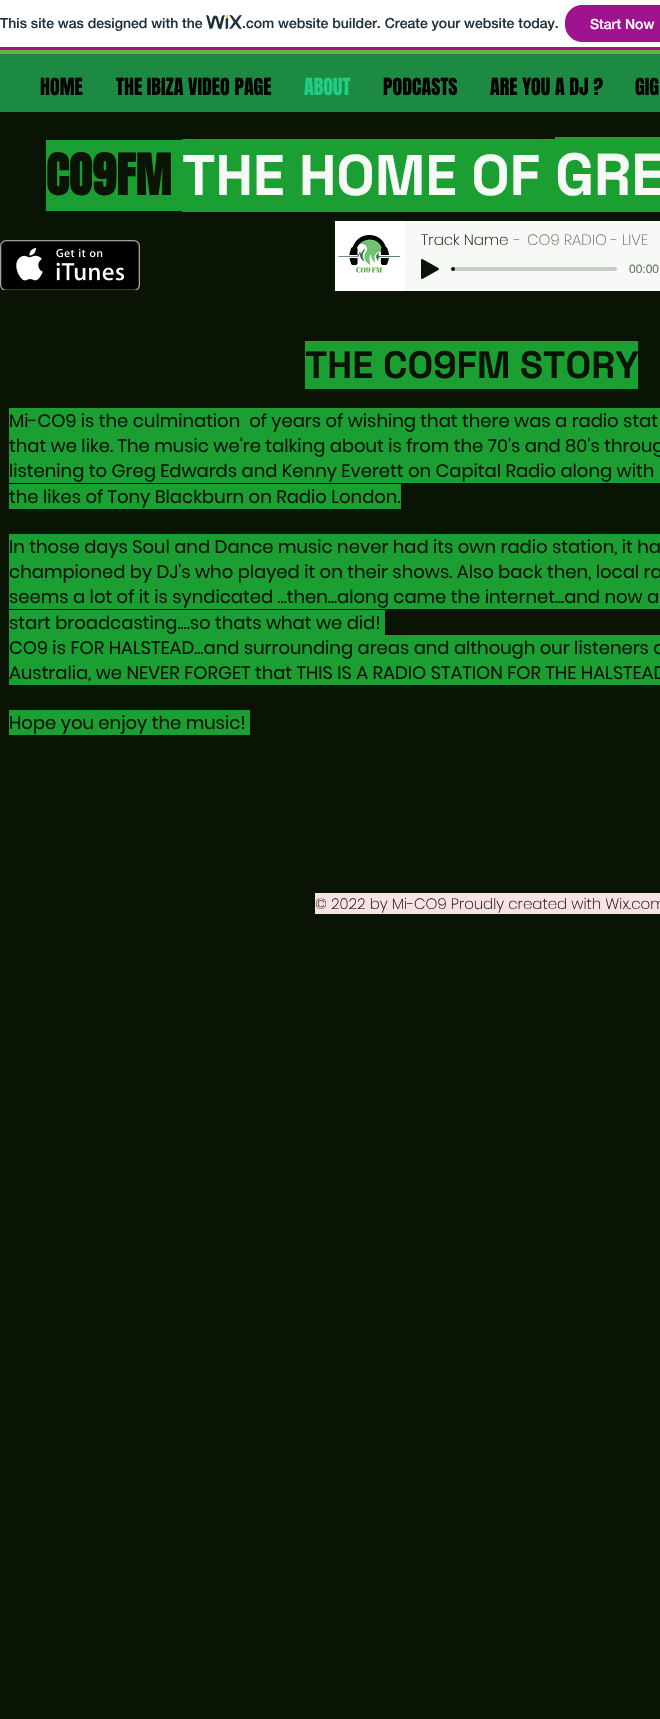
#include "include/core/SkBlurTypes.h"
#include "include/core/SkCanvas.h"
#include "include/core/SkData.h"
#include "include/core/SkFont.h"
#include "include/core/SkFontMgr.h"
#include "include/core/SkImage.h"
#include "include/core/SkMaskFilter.h"
#include "include/core/SkPaint.h"
#include "include/core/SkPathBuilder.h"
#include "include/core/SkTextBlob.h"
#include "include/effects/SkDashPathEffect.h"
#include "include/effects/SkGradientShader.h"
#include "include/utils/SkParsePath.h"

extern sk_sp<SkFontMgr> fontMgr;

void draw(SkCanvas* canvas) {
  SkPaint p;
  p.setAntiAlias(true);
  canvas->clear(SkColorSetRGB(9, 20, 5));
  p.setColor(SK_ColorWHITE);
  canvas->drawRect(SkRect::MakeLTRB(0, 0, 660, 47), p);
  p.setColor(SkColorSetRGB(160, 19, 142));
  canvas->drawRect(SkRect::MakeLTRB(0, 47, 660, 50), p);
  canvas->drawImageRect(SkImages::DeferredFromEncodedData(SkData::MakeFromFileName("images/1.png")), SkRect::MakeLTRB(206, 15, 242, 30), SkSamplingOptions());
  canvas->drawRoundRect(SkRect::MakeLTRB(565.5f, 5.5f, 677.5f, 41.5f), 16.5f, 16.5f, p);
  p.setStyle(SkPaint::kStroke_Style);
  p.setStrokeWidth(1);
  canvas->drawRoundRect(SkRect::MakeLTRB(565.5f, 5.5f, 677.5f, 41.5f), 16.5f, 16.5f, p);
  p.setStyle(SkPaint::kFill_Style);
  p.setColor(SkColorSetRGB(28, 138, 67));
  canvas->drawRect(SkRect::MakeLTRB(0, 54, 660, 112), p);
  p.setColor(SkColorSetRGB(104, 176, 77));
  canvas->drawRect(SkRect::MakeLTRB(0, 50, 660, 54), p);
  p.setColor(SkColorSetRGB(27, 158, 50));
  canvas->drawRect(SkRect::MakeLTRB(46, 140, 182, 211), p);
  canvas->drawRect(SkRect::MakeLTRB(182, 139, 555, 212), p);
  canvas->drawRect(SkRect::MakeLTRB(555, 137, 660, 212), p);
  canvas->drawImageRect(SkImages::DeferredFromEncodedData(SkData::MakeFromFileName("images/2.png")), SkRect::MakeLTRB(0, 240, 140, 290), SkSamplingOptions());
  p.setColor(SkColorSetRGB(246, 249, 245));
  canvas->drawRect(SkRect::MakeLTRB(405, 221, 660, 291), p);
  canvas->drawImageRect(SkImages::DeferredFromEncodedData(SkData::MakeFromFileName("images/3.png")), SkRect::MakeLTRB(335, 221, 405, 291), SkSamplingOptions());
  canvas->drawImageRect(SkImages::DeferredFromEncodedData(SkData::MakeFromFileName("images/4.png")), SkRect::MakeLTRB(421, 259, 439, 279), SkSamplingOptions());
  p.setColor(SkColorSetRGB(199, 203, 197));
  canvas->drawRoundRect(SkRect::MakeLTRB(453, 267, 617, 271), 2, 2, p);
  p.setColor(SkColorSetRGB(9, 20, 5));
  canvas->drawCircle(453, 269, 2, p);
  p.setColor(SkColorSetRGB(27, 158, 50));
  canvas->drawRect(SkRect::MakeLTRB(305, 341, 638, 389), p);
  canvas->drawRect(SkRect::MakeLTRB(9, 408, 660, 483), p);
  canvas->drawRect(SkRect::MakeLTRB(9, 484, 401, 509), p);
  canvas->drawRect(SkRect::MakeLTRB(9, 534, 660, 609), p);
  canvas->drawRect(SkRect::MakeLTRB(9, 610, 385, 635), p);
  canvas->drawRect(SkRect::MakeLTRB(9, 635, 660, 685), p);
  canvas->drawRect(SkRect::MakeLTRB(9, 710, 250, 735), p);
  p.setColor(SkColorSetRGB(250, 225, 227));
  canvas->drawRect(SkRect::MakeLTRB(315, 893, 660, 914), p);
  SkFont font1(fontMgr->matchFamilyStyle("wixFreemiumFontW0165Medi", SkFontStyle(500, SkFontStyle::kNormal_Width, SkFontStyle::kUpright_Slant)), 14);
  font1.setSubpixel(true);
  p.setColor(SkColorSetRGB(32, 48, 60));
  canvas->drawString("This site was designed with the", 0, 28, font1, p);
  canvas->drawString(".com website builder. Create your website today.", 242, 28, font1, p);
  p.setColor(SK_ColorWHITE);
  canvas->drawString("Start Now", 590, 29, font1, p);
  SkFont font2(fontMgr->matchFamilyStyle("Anton", SkFontStyle::Normal()), 20);
  font2.setSubpixel(true);
  p.setColor(SK_ColorBLACK);
  canvas->drawString("HOME", 40, 95, font2, p);
  canvas->drawString("THE IBIZA VIDEO PAGE", 116, 95, font2, p);
  p.setColor(SkColorSetRGB(32, 206, 136));
  canvas->drawString("ABOUT", 304, 95, font2, p);
  p.setColor(SK_ColorBLACK);
  canvas->drawString("PODCASTS", 383, 95, font2, p);
  canvas->drawString("ARE YOU A DJ ?", 490, 95, font2, p);
  canvas->drawString("GIG", 635, 95, font2, p);
  SkFont font3(fontMgr->matchFamilyStyle("Anton", SkFontStyle::Bold()), 48);
  font3.setSubpixel(true);
  p.setColor(SkColorSetRGB(9, 20, 5));
  canvas->drawString("CO9FM", 46, 195, font3, p);
  SkFont font4(fontMgr->matchFamilyStyle("Space Grotesk", SkFontStyle::Bold()), 57);
  font4.setSubpixel(true);
  p.setColor(SkColorSetRGB(246, 249, 245));
  canvas->drawString("THE HOME OF", 182, 195, font4, p);
  SkFont font5(fontMgr->matchFamilyStyle("Space Grotesk", SkFontStyle::Bold()), 59);
  font5.setSubpixel(true);
  canvas->drawString("GRE", 555, 195, font5, p);
  SkFont font6(fontMgr->matchFamilyStyle("Poppins", SkFontStyle(200, SkFontStyle::kNormal_Width, SkFontStyle::kUpright_Slant)), 15);
  font6.setSubpixel(true);
  p.setColor(SkColorSetRGB(9, 20, 5));
  canvas->drawString("Track Name", 421, 245, font6, p);
  p.setColor(SkColorSetRGB(104, 112, 101));
  canvas->drawString("-", 514, 245, font6, p);
  canvas->drawString("CO9 RADIO - LIVE", 527, 245, font6, p);
  SkFont font7(fontMgr->matchFamilyStyle("Liberation Sans", SkFontStyle::Normal()), 12);
  font7.setSubpixel(true);
  canvas->drawString("00:00", 629, 273, font7, p);
  SkFont font8(fontMgr->matchFamilyStyle("Space Grotesk", SkFontStyle::Bold()), 38);
  font8.setSubpixel(true);
  p.setColor(SkColorSetRGB(9, 20, 5));
  canvas->drawString("THE CO9FM STORY", 305, 378, font8, p);
  SkFont font9(fontMgr->matchFamilyStyle("Poppins", SkFontStyle::Normal()), 18);
  font9.setSubpixel(true);
  canvas->drawString("Mi-CO9 is the culmination  of years of wishing that there was a radio stat", 9, 427, font9, p);
  canvas->drawString("that we like. The music we're talking about is from the 70's and 80's throug", 9, 452, font9, p);
  canvas->drawString("listening to Greg Edwards and Kenny Everett on Capital Radio along with", 9, 477, font9, p);
  canvas->drawString("the likes of Tony Blackburn on Radio London.", 9, 503, font9, p);
  canvas->drawString("In those days Soul and Dance music never had its own radio station, it ha", 9, 553, font9, p);
  canvas->drawString("championed by DJ's who played it on their shows. Also back then, local ra", 9, 578, font9, p);
  canvas->drawString("seems a lot of it is syndicated ...then...along came the internet...and now a", 9, 603, font9, p);
  canvas->drawString("start broadcasting....so thats what we did!", 9, 629, font9, p);
  canvas->drawString("CO9 is FOR HALSTEAD...and surrounding areas and although our listeners a", 9, 654, font9, p);
  canvas->drawString("Australia, we NEVER FORGET that THIS IS A RADIO STATION FOR THE HALSTEAD", 9, 679, font9, p);
  canvas->drawString("Hope you enjoy the music!", 9, 729, font9, p);
  canvas->drawString("© 2022 by Mi-CO9 Proudly created with Wix.com", 315, 909, font6, p);
}
